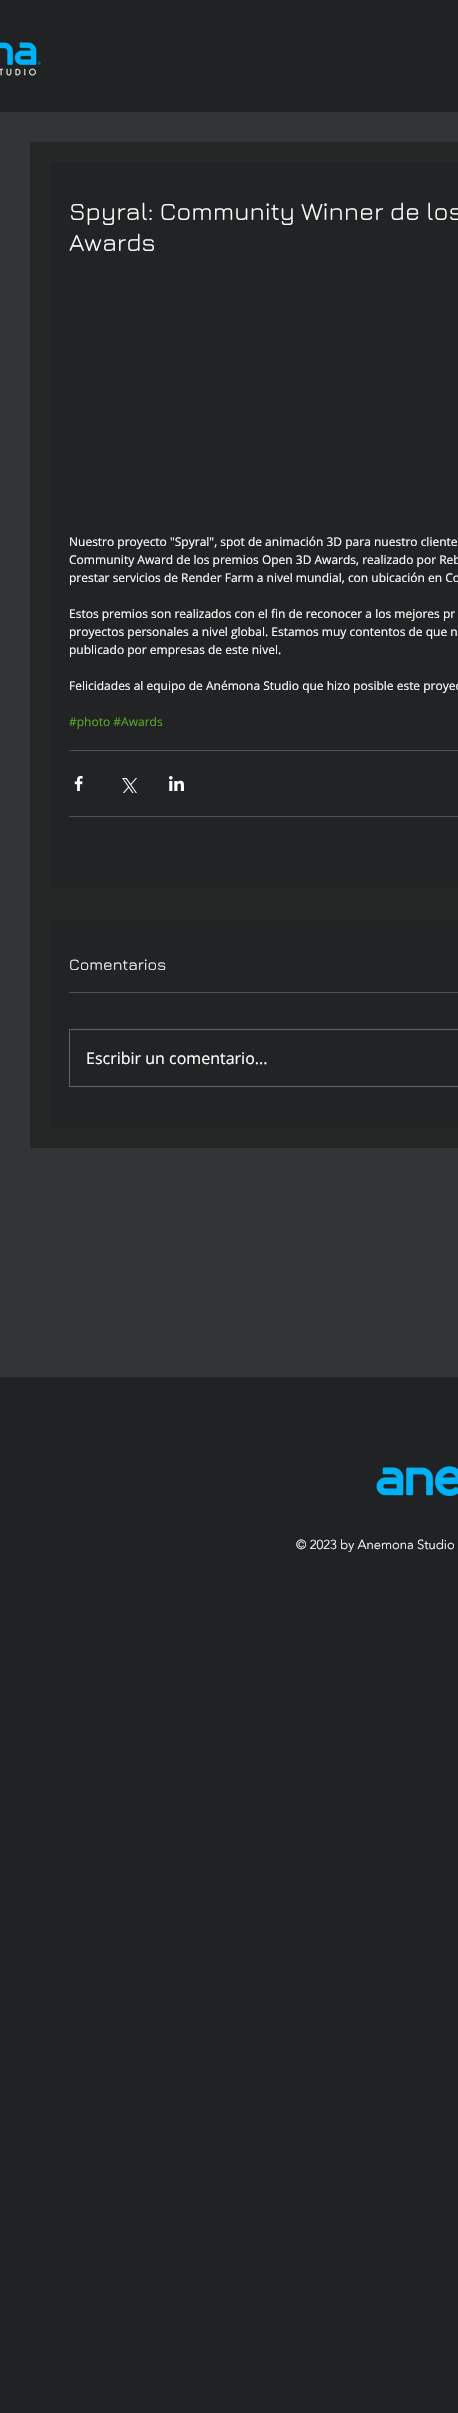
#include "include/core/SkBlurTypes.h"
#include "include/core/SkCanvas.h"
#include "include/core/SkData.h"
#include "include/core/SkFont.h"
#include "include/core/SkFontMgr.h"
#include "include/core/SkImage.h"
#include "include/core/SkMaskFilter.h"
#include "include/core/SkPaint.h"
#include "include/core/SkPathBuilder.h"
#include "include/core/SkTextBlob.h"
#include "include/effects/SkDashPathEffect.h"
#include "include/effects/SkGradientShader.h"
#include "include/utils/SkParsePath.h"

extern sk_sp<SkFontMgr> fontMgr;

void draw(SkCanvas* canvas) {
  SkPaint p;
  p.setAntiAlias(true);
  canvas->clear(SkColorSetRGB(32, 34, 35));
  canvas->drawImageRect(SkImages::DeferredFromEncodedData(SkData::MakeFromFileName("images/1.png")), SkRect::MakeLTRB(0, 42, 41, 76), SkSamplingOptions());
  p.setColor(SkColorSetRGB(50, 52, 53));
  canvas->drawRect(SkRect::MakeLTRB(0, 112, 458, 1377), p);
  p.setColor(SkColorSetRGB(37, 39, 39));
  canvas->drawRect(SkRect::MakeLTRB(30, 142, 458, 1148), p);
  p.setColor(SkColorSetRGB(33, 35, 36));
  canvas->drawRect(SkRect::MakeLTRB(50, 162, 458, 889), p);
  p.setColor(SkColorSetRGB(77, 79, 80));
  canvas->drawRect(SkRect::MakeLTRB(69, 750, 458, 751), p);
  canvas->drawImageRect(SkImages::DeferredFromEncodedData(SkData::MakeFromFileName("images/2.png")), SkRect::MakeLTRB(74, 776, 83, 791), SkSamplingOptions());
  canvas->drawImageRect(SkImages::DeferredFromEncodedData(SkData::MakeFromFileName("images/3.png")), SkRect::MakeLTRB(122, 778, 137, 793), SkSamplingOptions());
  canvas->drawImageRect(SkImages::DeferredFromEncodedData(SkData::MakeFromFileName("images/4.png")), SkRect::MakeLTRB(169, 776, 184, 791), SkSamplingOptions());
  canvas->drawRect(SkRect::MakeLTRB(69, 816, 458, 817), p);
  p.setColor(SkColorSetRGB(33, 35, 36));
  canvas->drawRect(SkRect::MakeLTRB(50, 919, 458, 1128), p);
  p.setColor(SkColorSetRGB(77, 79, 80));
  canvas->drawRect(SkRect::MakeLTRB(69, 992, 458, 993), p);
  p.setStyle(SkPaint::kStroke_Style);
  p.setStrokeWidth(1);
  p.setColor(SkColorSetRGB(100, 101, 102));
  canvas->drawRect(SkRect::MakeLTRB(69.5f, 1029.5f, 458.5f, 1086.5f), p);
  canvas->drawImageRect(SkImages::DeferredFromEncodedData(SkData::MakeFromFileName("images/5.png")), SkRect::MakeLTRB(376, 1466, 458, 1497), SkSamplingOptions());
  SkFont font1(fontMgr->matchFamilyStyle("Jura", SkFontStyle::Normal()), 25);
  font1.setSubpixel(true);
  p.setStyle(SkPaint::kFill_Style);
  p.setColor(SK_ColorWHITE);
  canvas->drawString("Spyral: Community Winner de los", 69, 220, font1, p);
  canvas->drawString("Awards", 69, 251, font1, p);
  SkFont font2(fontMgr->matchFamilyStyle("Open Sans", SkFontStyle::Normal()), 12);
  font2.setSubpixel(true);
  canvas->drawString("Nuestro proyecto \"Spyral\", spot de animación 3D para nuestro cliente", 69, 546, font2, p);
  canvas->drawString("Community Award de los premios Open 3D Awards, realizado por Reb", 69, 564, font2, p);
  canvas->drawString("prestar servicios de Render Farm a nivel mundial, con ubicación en Co", 69, 582, font2, p);
  canvas->drawString("Estos premios son realizados con el fin de reconocer a los mejores pr", 69, 618, font2, p);
  canvas->drawString("proyectos personales a nivel global. Estamos muy contentos de que n", 69, 636, font2, p);
  canvas->drawString("publicado por empresas de este nivel.", 69, 654, font2, p);
  canvas->drawString("Felicidades al equipo de Anémona Studio que hizo posible este proyec", 69, 690, font2, p);
  p.setColor(SkColorSetRGB(86, 173, 33));
  canvas->drawString("#photo #Awards", 69, 726, font2, p);
  SkFont font3(fontMgr->matchFamilyStyle("Jura", SkFontStyle::Normal()), 16);
  font3.setSubpixel(true);
  p.setColor(SK_ColorWHITE);
  canvas->drawString("Comentarios", 69, 970, font3, p);
  SkFont font4(fontMgr->matchFamilyStyle("Open Sans", SkFontStyle::Normal()), 16);
  font4.setSubpixel(true);
  canvas->drawString("Escribir un comentario...", 86, 1064, font4, p);
  SkFont font5(fontMgr->matchFamilyStyle("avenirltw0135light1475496", SkFontStyle(300, SkFontStyle::kNormal_Width, SkFontStyle::kUpright_Slant)), 13);
  font5.setSubpixel(true);
  canvas->drawString("© 2023 by Anemona Studio", 296, 1549, font5, p);
}
